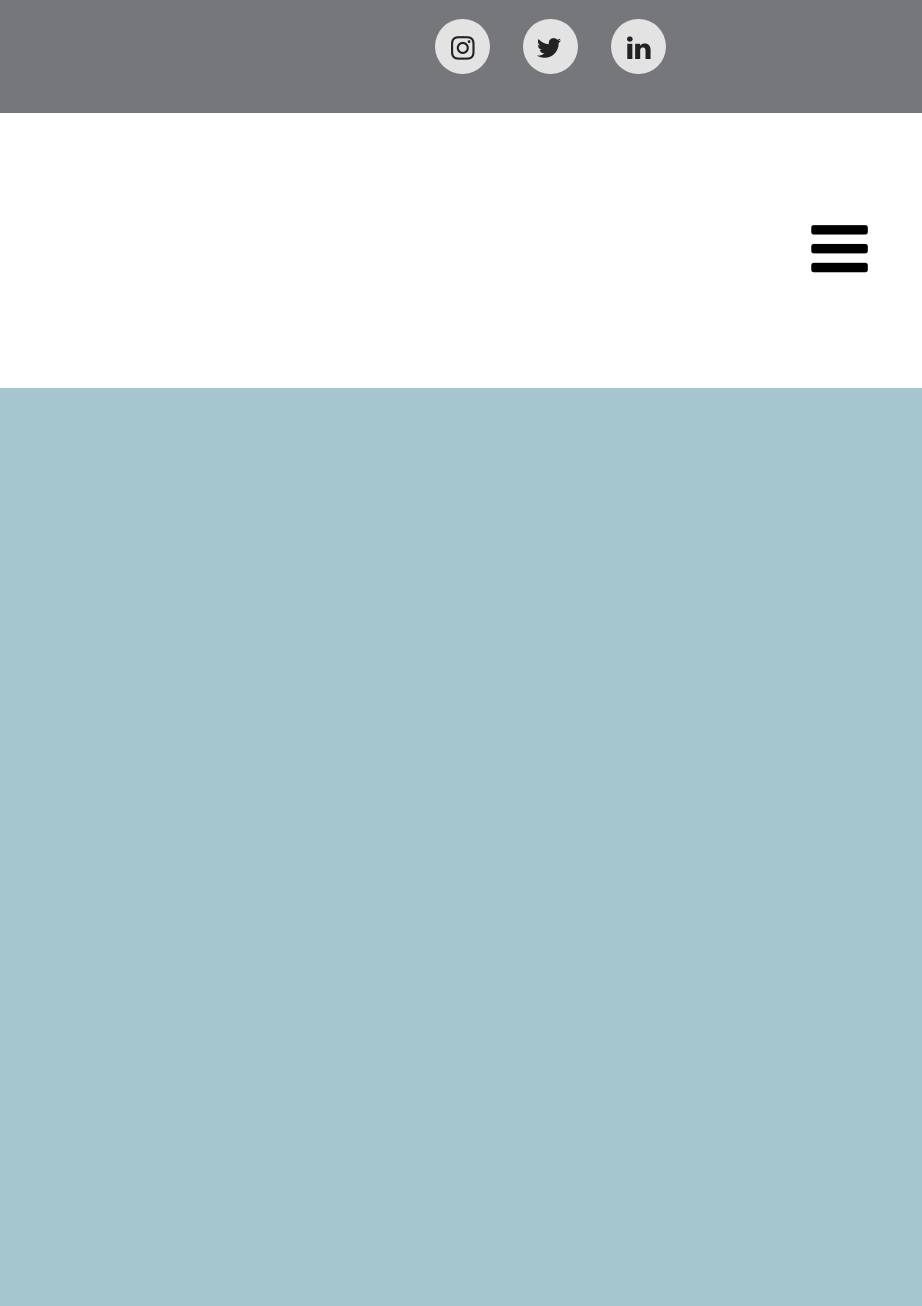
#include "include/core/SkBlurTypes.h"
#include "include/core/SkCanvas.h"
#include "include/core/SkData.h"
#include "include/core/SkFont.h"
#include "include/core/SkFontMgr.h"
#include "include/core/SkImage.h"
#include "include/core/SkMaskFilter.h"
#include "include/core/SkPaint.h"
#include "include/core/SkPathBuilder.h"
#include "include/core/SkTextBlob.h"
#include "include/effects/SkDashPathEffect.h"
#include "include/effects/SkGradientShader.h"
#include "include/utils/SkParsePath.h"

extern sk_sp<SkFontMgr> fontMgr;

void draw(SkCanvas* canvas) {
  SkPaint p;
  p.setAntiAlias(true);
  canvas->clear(SkColorSetRGB(165, 198, 207));
  p.setColor(SkColorSetRGB(118, 119, 123));
  canvas->drawRect(SkRect::MakeLTRB(0, 0, 922, 113), p);
  p.setColor(SkColorSetRGB(227, 227, 227));
  canvas->drawCircle(462.5f, 46.5f, 27.5f, p);
  canvas->drawImageRect(SkImages::DeferredFromEncodedData(SkData::MakeFromFileName("images/1.png")), SkRect::MakeLTRB(451, 36, 475, 60), SkSamplingOptions());
  canvas->drawCircle(550.5f, 46.5f, 27.5f, p);
  canvas->drawImageRect(SkImages::DeferredFromEncodedData(SkData::MakeFromFileName("images/2.png")), SkRect::MakeLTRB(537, 38, 561, 58), SkSamplingOptions());
  canvas->drawCircle(638.5f, 46.5f, 27.5f, p);
  canvas->drawImageRect(SkImages::DeferredFromEncodedData(SkData::MakeFromFileName("images/3.png")), SkRect::MakeLTRB(627, 36, 651, 59), SkSamplingOptions());
  p.setColor(SK_ColorWHITE);
  canvas->drawRect(SkRect::MakeLTRB(0, 113, 922, 388), p);
  canvas->drawImageRect(SkImages::DeferredFromEncodedData(SkData::MakeFromFileName("images/4.png")), SkRect::MakeLTRB(811, 225, 868, 273), SkSamplingOptions());
}
